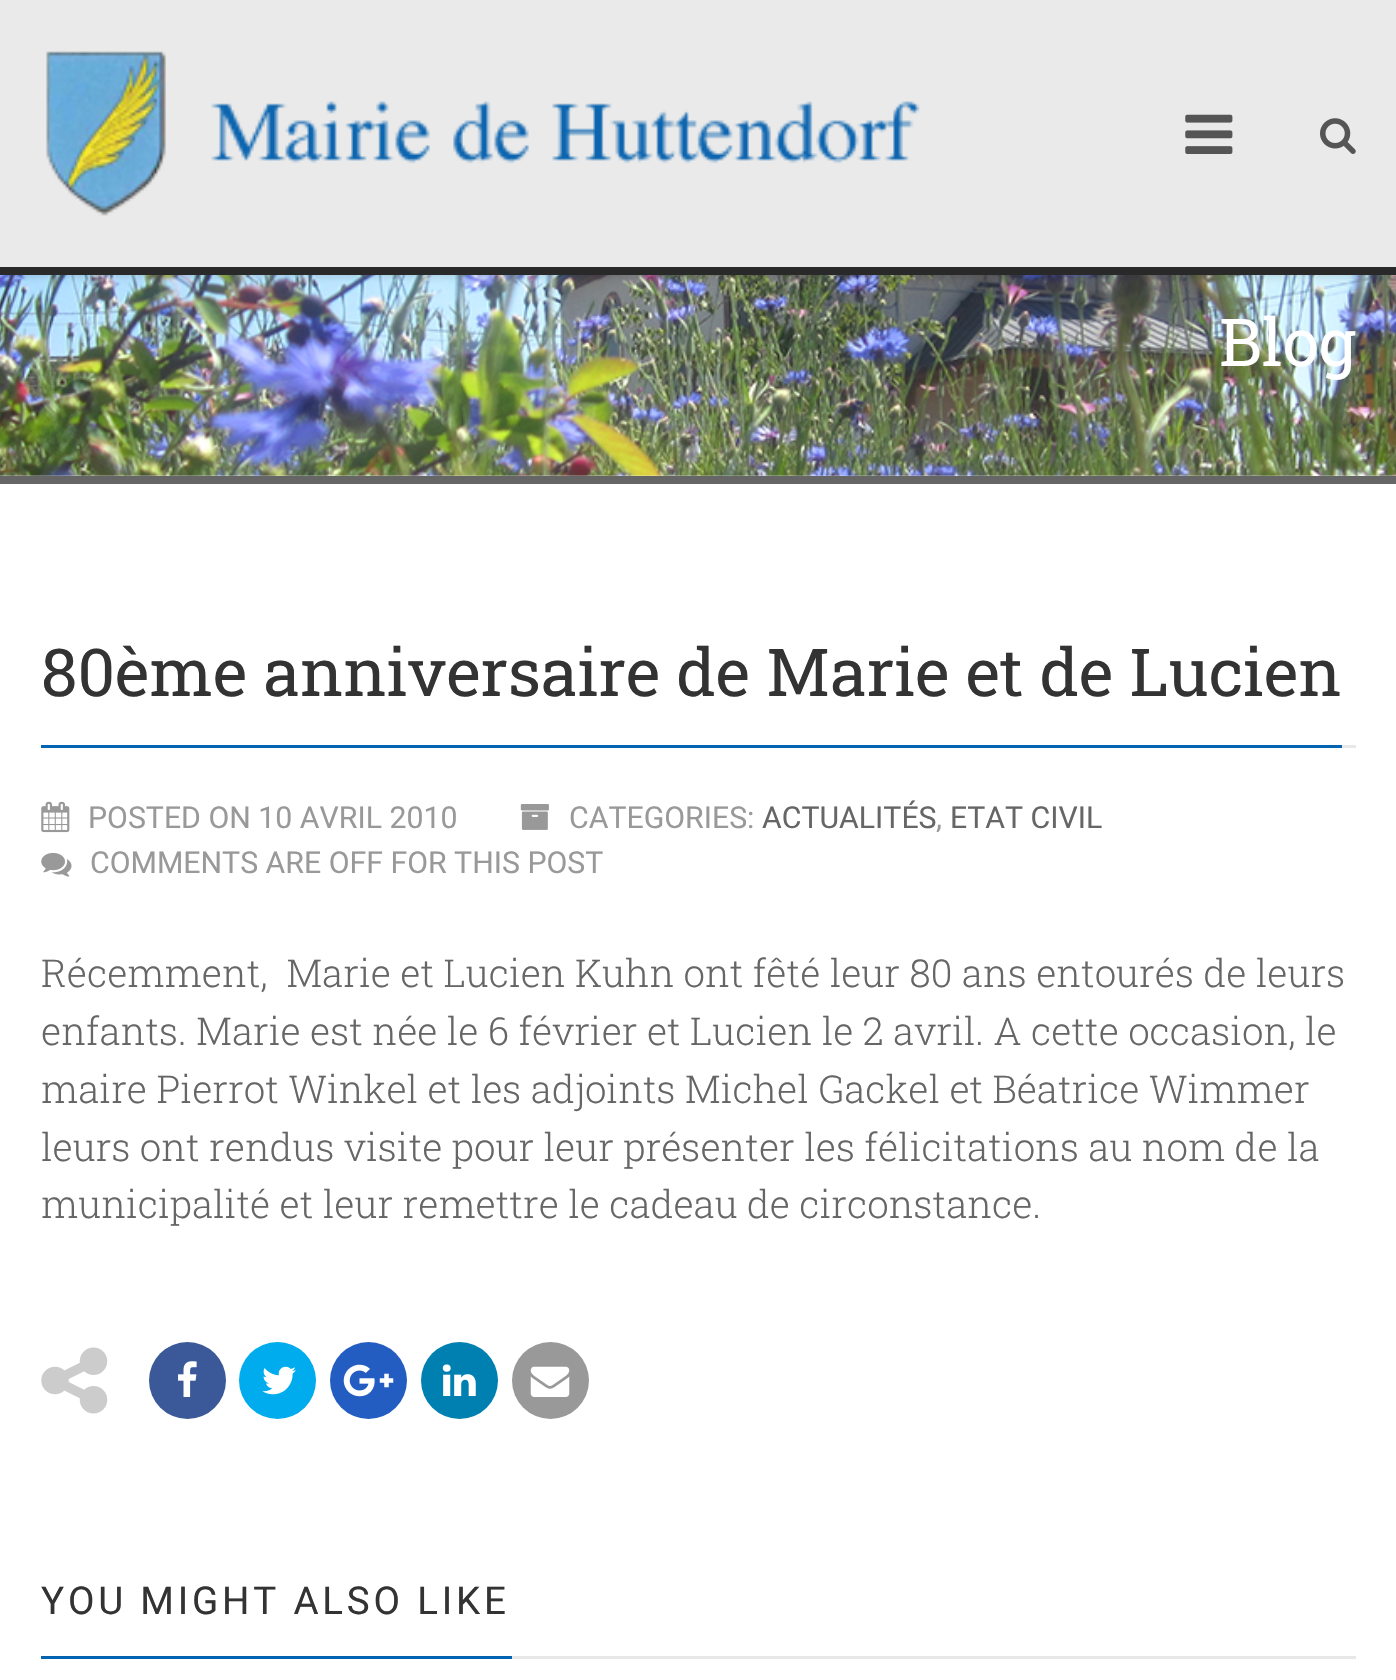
#include "include/core/SkBlurTypes.h"
#include "include/core/SkCanvas.h"
#include "include/core/SkData.h"
#include "include/core/SkFont.h"
#include "include/core/SkFontMgr.h"
#include "include/core/SkImage.h"
#include "include/core/SkMaskFilter.h"
#include "include/core/SkPaint.h"
#include "include/core/SkPathBuilder.h"
#include "include/core/SkTextBlob.h"
#include "include/effects/SkDashPathEffect.h"
#include "include/effects/SkGradientShader.h"
#include "include/utils/SkParsePath.h"

extern sk_sp<SkFontMgr> fontMgr;

void draw(SkCanvas* canvas) {
  SkPaint p;
  p.setAntiAlias(true);
  auto spacedText = [&](const char* s, float x, float y, const SkFont& font, const SkPaint& ink, float letter, float word) {
    std::vector<SkGlyphID> glyphs(font.countText(s, strlen(s), SkTextEncoding::kUTF8));
    std::vector<float> xs(glyphs.size());
    font.textToGlyphs(s, strlen(s), SkTextEncoding::kUTF8, glyphs);
    font.getXPos(glyphs, xs, x);
    float extra = 0;
    for (size_t i = 0; i < glyphs.size(); i++) {
      xs[i] += extra;
      extra += letter + word * (glyphs[i] == font.unicharToGlyph(' '));
    }
    canvas->drawTextBlob(SkTextBlob::MakeFromPosHGlyphs(glyphs, xs, y, font), 0, 0, ink);
  };
  canvas->clear(SK_ColorWHITE);
  canvas->drawImageRect(SkImages::DeferredFromEncodedData(SkData::MakeFromFileName("images/4.png")), SkRect::MakeLTRB(0, 275, 1396, 476), SkSamplingOptions());
  p.setColor(SkColorSetARGB(26, 0, 0, 0));
  p.setMaskFilter(SkMaskFilter::MakeBlur(kNormal_SkBlurStyle, 3));
  canvas->drawRoundRect(SkRect::MakeLTRB(0, 3, 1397, 278), 14, 14, p);
  p.setMaskFilter(nullptr);
  p.setColor(SkColorSetRGB(41, 41, 41));
  canvas->drawRect(SkRect::MakeLTRB(0, 267, 1396, 275), p);
  p.setColor(SkColorSetRGB(234, 234, 234));
  canvas->drawRect(SkRect::MakeLTRB(0, 0, 1396, 267), p);
  canvas->drawImageRect(SkImages::DeferredFromEncodedData(SkData::MakeFromFileName("images/1.png")), SkRect::MakeLTRB(46, 51, 920, 216), SkSamplingOptions());
  canvas->drawImageRect(SkImages::DeferredFromEncodedData(SkData::MakeFromFileName("images/2.png")), SkRect::MakeLTRB(1185, 114, 1233, 154), SkSamplingOptions());
  canvas->drawImageRect(SkImages::DeferredFromEncodedData(SkData::MakeFromFileName("images/3.png")), SkRect::MakeLTRB(1320, 118, 1356, 154), SkSamplingOptions());
  p.setColor(SkColorSetRGB(102, 102, 102));
  canvas->drawRect(SkRect::MakeLTRB(0, 476, 1396, 484), p);
  p.setColor(SkColorSetRGB(232, 232, 232));
  canvas->drawRect(SkRect::MakeLTRB(1342, 745, 1356, 748), p);
  p.setColor(SkColorSetRGB(2, 99, 176));
  canvas->drawRect(SkRect::MakeLTRB(41, 745, 1342, 748), p);
  canvas->drawImageRect(SkImages::DeferredFromEncodedData(SkData::MakeFromFileName("images/5.png")), SkRect::MakeLTRB(41, 801, 70, 833), SkSamplingOptions());
  canvas->drawImageRect(SkImages::DeferredFromEncodedData(SkData::MakeFromFileName("images/6.png")), SkRect::MakeLTRB(520, 804, 549, 830), SkSamplingOptions());
  canvas->drawImageRect(SkImages::DeferredFromEncodedData(SkData::MakeFromFileName("images/7.png")), SkRect::MakeLTRB(41, 852, 72, 877), SkSamplingOptions());
  canvas->drawImageRect(SkImages::DeferredFromEncodedData(SkData::MakeFromFileName("images/8.png")), SkRect::MakeLTRB(41, 1347, 108, 1414), SkSamplingOptions());
  p.setColor(SkColorSetRGB(59, 89, 152));
  canvas->drawCircle(187.5f, 1380.5f, 38.5f, p);
  canvas->drawImageRect(SkImages::DeferredFromEncodedData(SkData::MakeFromFileName("images/9.png")), SkRect::MakeLTRB(178, 1361, 197, 1397), SkSamplingOptions());
  p.setColor(SkColorSetRGB(0, 172, 237));
  canvas->drawCircle(277.5f, 1380.5f, 38.5f, p);
  canvas->drawImageRect(SkImages::DeferredFromEncodedData(SkData::MakeFromFileName("images/10.png")), SkRect::MakeLTRB(262, 1366, 296, 1395), SkSamplingOptions());
  p.setColor(SkColorSetRGB(36, 93, 193));
  canvas->drawCircle(368.5f, 1380.5f, 38.5f, p);
  canvas->drawImageRect(SkImages::DeferredFromEncodedData(SkData::MakeFromFileName("images/11.png")), SkRect::MakeLTRB(343, 1364, 394, 1397), SkSamplingOptions());
  p.setColor(SkColorSetRGB(0, 127, 177));
  canvas->drawCircle(459.5f, 1380.5f, 38.5f, p);
  canvas->drawImageRect(SkImages::DeferredFromEncodedData(SkData::MakeFromFileName("images/12.png")), SkRect::MakeLTRB(442, 1364, 476, 1396), SkSamplingOptions());
  p.setColor(SkColorSetRGB(153, 153, 153));
  canvas->drawCircle(550.5f, 1380.5f, 38.5f, p);
  canvas->drawImageRect(SkImages::DeferredFromEncodedData(SkData::MakeFromFileName("images/13.png")), SkRect::MakeLTRB(530, 1366, 570, 1397), SkSamplingOptions());
  p.setColor(SkColorSetRGB(232, 232, 232));
  canvas->drawRect(SkRect::MakeLTRB(512, 1656, 1356, 1659), p);
  p.setColor(SkColorSetRGB(2, 99, 176));
  canvas->drawRect(SkRect::MakeLTRB(41, 1656, 512, 1659), p);
  SkFont font1(fontMgr->matchFamilyStyle("Roboto Slab", SkFontStyle::Normal()), 66);
  font1.setSubpixel(true);
  p.setColor(SK_ColorWHITE);
  canvas->drawString("Blog", 1219, 366, font1, p);
  p.setColor(SkColorSetRGB(51, 51, 51));
  canvas->drawString("80ème anniversaire de Marie et de Lucien", 41, 696, font1, p);
  SkFont font2(fontMgr->matchFamilyStyle("Roboto", SkFontStyle::Normal()), 30.25f);
  font2.setSubpixel(true);
  p.setColor(SkColorSetRGB(153, 153, 153));
  canvas->drawString("POSTED ON 10 AVRIL 2010", 88, 828, font2, p);
  canvas->drawString("CATEGORIES:", 569, 828, font2, p);
  p.setColor(SkColorSetRGB(102, 102, 102));
  canvas->drawString("ACTUALITÉS", 762, 828, font2, p);
  p.setColor(SkColorSetRGB(153, 153, 153));
  canvas->drawString(",", 936, 828, font2, p);
  p.setColor(SkColorSetRGB(102, 102, 102));
  canvas->drawString("ETAT CIVIL", 950, 828, font2, p);
  p.setColor(SkColorSetRGB(153, 153, 153));
  canvas->drawString("COMMENTS ARE OFF FOR THIS POST", 90, 873, font2, p);
  SkFont font3(fontMgr->matchFamilyStyle("Roboto Slab", SkFontStyle(300, SkFontStyle::kNormal_Width, SkFontStyle::kUpright_Slant)), 38.5f);
  font3.setSubpixel(true);
  p.setColor(SkColorSetRGB(102, 102, 102));
  canvas->drawString("Récemment,  Marie et Lucien Kuhn ont fêté leur 80 ans entourés de leurs", 41, 987, font3, p);
  canvas->drawString("enfants. Marie est née le 6 février et Lucien le 2 avril. A cette occasion, le", 41, 1045, font3, p);
  canvas->drawString("maire Pierrot Winkel et les adjoints Michel Gackel et Béatrice Wimmer", 41, 1103, font3, p);
  canvas->drawString("leurs ont rendus visite pour leur présenter les félicitations au nom de la", 41, 1161, font3, p);
  canvas->drawString("municipalité et leur remettre le cadeau de circonstance.", 41, 1218, font3, p);
  SkFont font4(fontMgr->matchFamilyStyle("Roboto", SkFontStyle::Normal()), 38.5f);
  font4.setSubpixel(true);
  p.setColor(SkColorSetRGB(51, 51, 51));
  spacedText("YOU MIGHT ALSO LIKE", 41, 1614, font4, p, 3.8f, 0);
}
